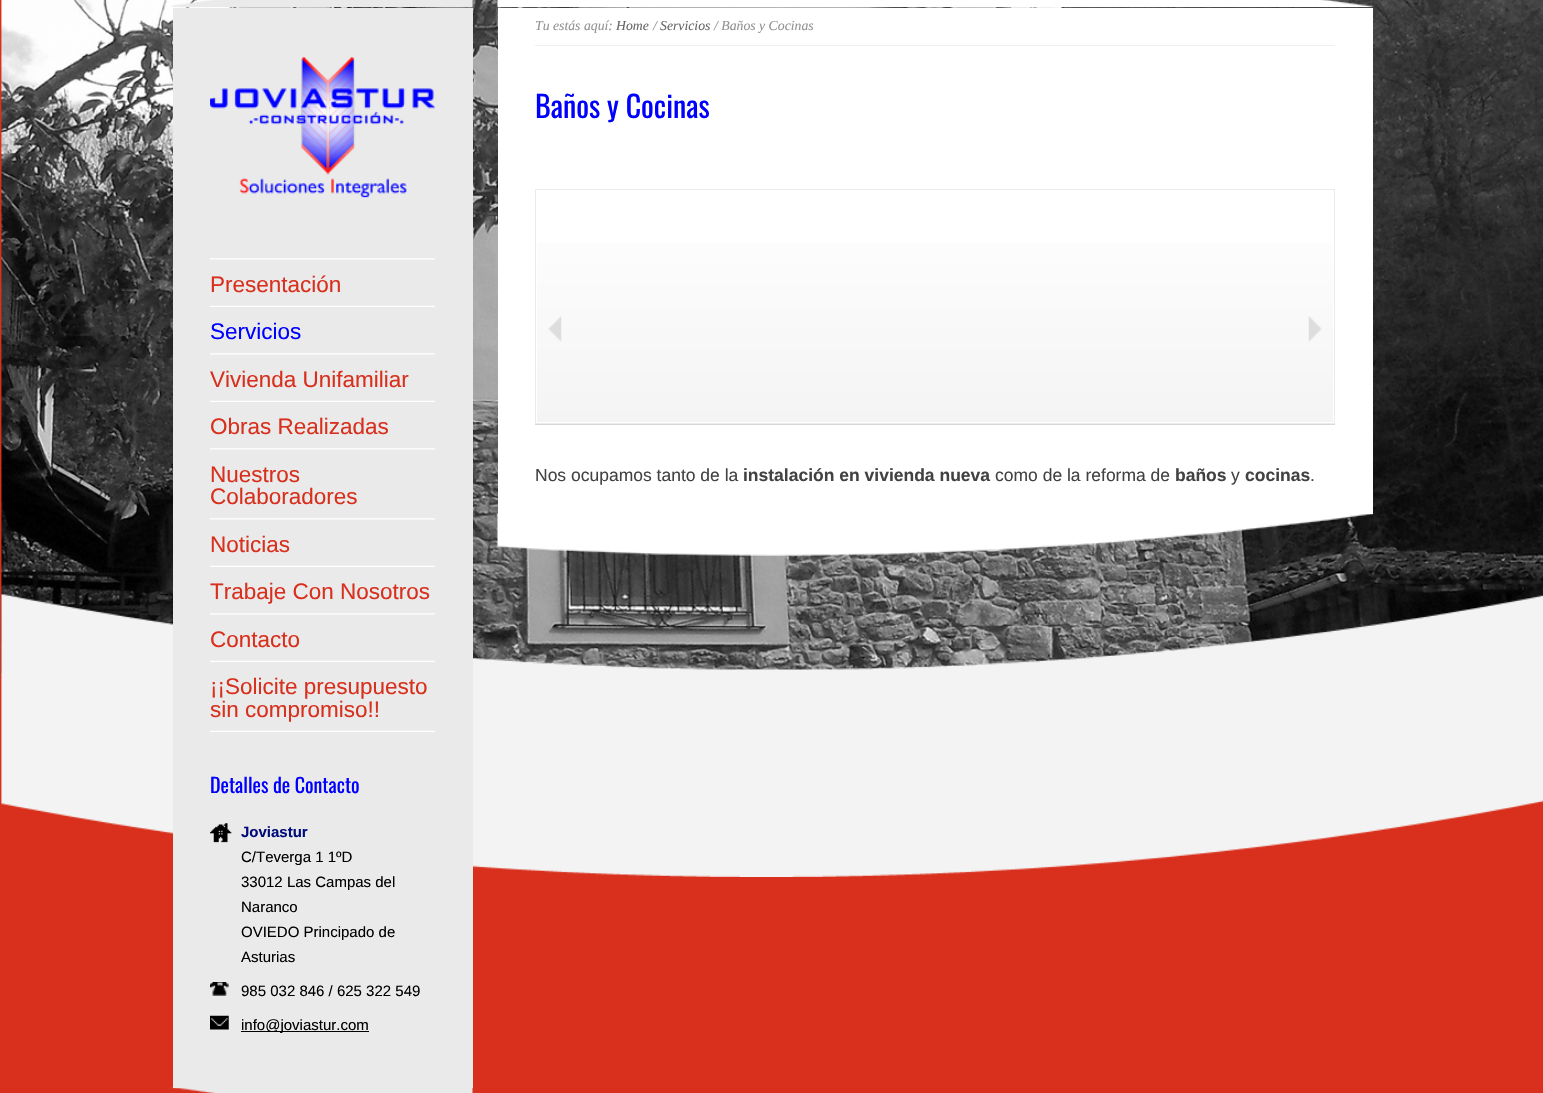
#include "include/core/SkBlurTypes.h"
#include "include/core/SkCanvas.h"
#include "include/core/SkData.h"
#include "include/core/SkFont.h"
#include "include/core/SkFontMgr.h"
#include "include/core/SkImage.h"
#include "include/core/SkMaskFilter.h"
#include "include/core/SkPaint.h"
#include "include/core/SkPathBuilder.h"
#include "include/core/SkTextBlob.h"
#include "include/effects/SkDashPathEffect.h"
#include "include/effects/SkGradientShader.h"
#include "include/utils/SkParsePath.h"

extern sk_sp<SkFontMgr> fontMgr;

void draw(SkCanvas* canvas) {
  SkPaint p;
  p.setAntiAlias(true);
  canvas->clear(SkColorSetRGB(216, 48, 29));
  canvas->drawImageRect(SkImages::DeferredFromEncodedData(SkData::MakeFromFileName("images/1.png")), SkRect::MakeLTRB(1, 0, 1543, 677), SkSamplingOptions());
  canvas->drawImageRect(SkImages::DeferredFromEncodedData(SkData::MakeFromFileName("images/2.png")), SkRect::MakeLTRB(1, 593, 1543, 877), SkSamplingOptions());
  canvas->drawImageRect(SkImages::DeferredFromEncodedData(SkData::MakeFromFileName("images/3.png")), SkRect::MakeLTRB(172, 0, 473, 7), SkSamplingOptions());
  p.setColor(SkColorSetRGB(234, 234, 234));
  canvas->drawRect(SkRect::MakeLTRB(173, 8, 473, 1088), p);
  canvas->drawImageRect(SkImages::DeferredFromEncodedData(SkData::MakeFromFileName("images/4.png")), SkRect::MakeLTRB(210, 57, 435, 198), SkSamplingOptions());
  canvas->drawImageRect(SkImages::DeferredFromEncodedData(SkData::MakeFromFileName("images/5.png")), SkRect::MakeLTRB(210, 258, 435, 260), SkSamplingOptions());
  canvas->drawImageRect(SkImages::DeferredFromEncodedData(SkData::MakeFromFileName("images/6.png")), SkRect::MakeLTRB(210, 305, 435, 307), SkSamplingOptions());
  canvas->drawImageRect(SkImages::DeferredFromEncodedData(SkData::MakeFromFileName("images/5.png")), SkRect::MakeLTRB(210, 353, 435, 355), SkSamplingOptions());
  canvas->drawImageRect(SkImages::DeferredFromEncodedData(SkData::MakeFromFileName("images/6.png")), SkRect::MakeLTRB(210, 400, 435, 402), SkSamplingOptions());
  canvas->drawImageRect(SkImages::DeferredFromEncodedData(SkData::MakeFromFileName("images/5.png")), SkRect::MakeLTRB(210, 448, 435, 450), SkSamplingOptions());
  canvas->drawImageRect(SkImages::DeferredFromEncodedData(SkData::MakeFromFileName("images/5.png")), SkRect::MakeLTRB(210, 518, 435, 520), SkSamplingOptions());
  canvas->drawImageRect(SkImages::DeferredFromEncodedData(SkData::MakeFromFileName("images/6.png")), SkRect::MakeLTRB(210, 565, 435, 567), SkSamplingOptions());
  canvas->drawImageRect(SkImages::DeferredFromEncodedData(SkData::MakeFromFileName("images/5.png")), SkRect::MakeLTRB(210, 613, 435, 615), SkSamplingOptions());
  canvas->drawImageRect(SkImages::DeferredFromEncodedData(SkData::MakeFromFileName("images/6.png")), SkRect::MakeLTRB(210, 660, 435, 662), SkSamplingOptions());
  canvas->drawImageRect(SkImages::DeferredFromEncodedData(SkData::MakeFromFileName("images/6.png")), SkRect::MakeLTRB(210, 730, 435, 732), SkSamplingOptions());
  canvas->drawImageRect(SkImages::DeferredFromEncodedData(SkData::MakeFromFileName("images/7.png")), SkRect::MakeLTRB(210, 823, 232, 843), SkSamplingOptions());
  canvas->drawImageRect(SkImages::DeferredFromEncodedData(SkData::MakeFromFileName("images/8.png")), SkRect::MakeLTRB(210, 982, 229, 996), SkSamplingOptions());
  canvas->drawImageRect(SkImages::DeferredFromEncodedData(SkData::MakeFromFileName("images/9.png")), SkRect::MakeLTRB(210, 1015, 229, 1030), SkSamplingOptions());
  p.setColor(SK_ColorBLACK);
  canvas->drawRect(SkRect::MakeLTRB(241, 1031, 369, 1032), p);
  canvas->drawImageRect(SkImages::DeferredFromEncodedData(SkData::MakeFromFileName("images/10.png")), SkRect::MakeLTRB(172, 1087, 473, 1093), SkSamplingOptions());
  canvas->drawImageRect(SkImages::DeferredFromEncodedData(SkData::MakeFromFileName("images/11.png")), SkRect::MakeLTRB(497, 0, 1373, 7), SkSamplingOptions());
  p.setColor(SK_ColorWHITE);
  canvas->drawRect(SkRect::MakeLTRB(498, 8, 1373, 514), p);
  p.setColor(SkColorSetRGB(238, 238, 238));
  canvas->drawRect(SkRect::MakeLTRB(535, 45, 1335, 46), p);
  p.setColor(SkColorSetRGB(216, 216, 216));
  canvas->drawRect(SkRect::MakeLTRB(535, 424, 1335, 425), p);
  {
    const SkColor colors[] = {SK_ColorWHITE, SkColorSetRGB(244, 244, 244)};
    const float stops[] = {0, 1};
    const SkPoint ends[] = {{935, 190}, {935, 423}};
    p.setShader(SkGradientShader::MakeLinear(ends, colors, stops, 2, SkTileMode::kClamp));
    p.setAlpha(255);
  }
  canvas->drawRect(SkRect::MakeLTRB(537, 243, 1333, 422), p);
  p.setStyle(SkPaint::kStroke_Style);
  p.setStrokeWidth(1);
  p.setShader(nullptr);
  p.setColor(SkColorSetRGB(235, 235, 235));
  canvas->drawRect(SkRect::MakeLTRB(535.5f, 189.5f, 1334.5f, 423.5f), p);
  canvas->drawImageRect(SkImages::DeferredFromEncodedData(SkData::MakeFromFileName("images/12.png")), SkRect::MakeLTRB(548, 316, 562, 342), SkSamplingOptions());
  canvas->drawImageRect(SkImages::DeferredFromEncodedData(SkData::MakeFromFileName("images/13.png")), SkRect::MakeLTRB(1308, 316, 1322, 342), SkSamplingOptions());
  canvas->drawImageRect(SkImages::DeferredFromEncodedData(SkData::MakeFromFileName("images/14.png")), SkRect::MakeLTRB(497, 513, 1373, 556), SkSamplingOptions());
  SkFont font1(fontMgr->matchFamilyStyle("Liberation Sans", SkFontStyle::Normal()), 22.5f);
  font1.setSubpixel(true);
  p.setStyle(SkPaint::kFill_Style);
  p.setColor(SkColorSetRGB(216, 48, 29));
  canvas->drawString("Presentación", 210, 292, font1, p);
  p.setColor(SkColorSetRGB(0, 0, 255));
  canvas->drawString("Servicios", 210, 339, font1, p);
  p.setColor(SkColorSetRGB(216, 48, 29));
  canvas->drawString("Vivienda Unifamiliar", 210, 387, font1, p);
  canvas->drawString("Obras Realizadas", 210, 434, font1, p);
  canvas->drawString("Nuestros", 210, 482, font1, p);
  canvas->drawString("Colaboradores", 210, 504, font1, p);
  canvas->drawString("Noticias", 210, 552, font1, p);
  canvas->drawString("Trabaje Con Nosotros", 210, 599, font1, p);
  canvas->drawString("Contacto", 210, 647, font1, p);
  canvas->drawString("¡¡Solicite presupuesto", 210, 694, font1, p);
  canvas->drawString("sin compromiso!!", 210, 717, font1, p);
  SkFont font2(fontMgr->matchFamilyStyle("Oswald", SkFontStyle::Normal()), 20);
  font2.setSubpixel(true);
  p.setColor(SkColorSetRGB(0, 0, 255));
  canvas->drawString("Detalles de Contacto", 210, 793, font2, p);
  SkFont font3(fontMgr->matchFamilyStyle("Liberation Sans", SkFontStyle::Bold()), 15);
  font3.setSubpixel(true);
  p.setColor(SkColorSetRGB(1, 11, 122));
  canvas->drawString("Joviastur", 241, 837, font3, p);
  SkFont font4(fontMgr->matchFamilyStyle("Liberation Sans", SkFontStyle::Normal()), 15);
  font4.setSubpixel(true);
  p.setColor(SK_ColorBLACK);
  canvas->drawString("C/Teverga 1 1ºD", 241, 862, font4, p);
  canvas->drawString("33012 Las Campas del", 241, 887, font4, p);
  canvas->drawString("Naranco", 241, 912, font4, p);
  canvas->drawString("OVIEDO Principado de", 241, 937, font4, p);
  canvas->drawString("Asturias", 241, 962, font4, p);
  canvas->drawString("985 032 846 / 625 322 549", 241, 996, font4, p);
  canvas->drawString("info@joviastur.com", 241, 1030, font4, p);
  SkFont font5(fontMgr->matchFamilyStyle("Liberation Serif", SkFontStyle::Italic()), 13.75f);
  font5.setSubpixel(true);
  p.setColor(SkColorSetRGB(146, 146, 146));
  canvas->drawString("Tu estás aquí:", 535, 30, font5, p);
  p.setColor(SkColorSetRGB(102, 102, 102));
  canvas->drawString("Home", 616, 30, font5, p);
  p.setColor(SkColorSetRGB(146, 146, 146));
  canvas->drawString("/", 653, 30, font5, p);
  p.setColor(SkColorSetRGB(102, 102, 102));
  canvas->drawString("Servicios", 660, 30, font5, p);
  p.setColor(SkColorSetRGB(146, 146, 146));
  canvas->drawString("/ Baños y Cocinas", 714, 30, font5, p);
  SkFont font6(fontMgr->matchFamilyStyle("Oswald", SkFontStyle::Normal()), 30);
  font6.setSubpixel(true);
  p.setColor(SkColorSetRGB(0, 0, 255));
  canvas->drawString("Baños y Cocinas", 535, 118, font6, p);
  SkFont font7(fontMgr->matchFamilyStyle("Liberation Sans", SkFontStyle::Normal()), 17.5f);
  font7.setSubpixel(true);
  p.setColor(SkColorSetRGB(66, 66, 66));
  canvas->drawString("Nos ocupamos tanto de la", 535, 481, font7, p);
  SkFont font8(fontMgr->matchFamilyStyle("Liberation Sans", SkFontStyle::Bold()), 17.5f);
  font8.setSubpixel(true);
  canvas->drawString("instalación en vivienda nueva", 743, 481, font8, p);
  canvas->drawString("como de la reforma de", 995, 481, font7, p);
  canvas->drawString("baños", 1175, 481, font8, p);
  canvas->drawString("y", 1231, 481, font7, p);
  canvas->drawString("cocinas", 1245, 481, font8, p);
  canvas->drawString(".", 1310, 481, font7, p);
}
